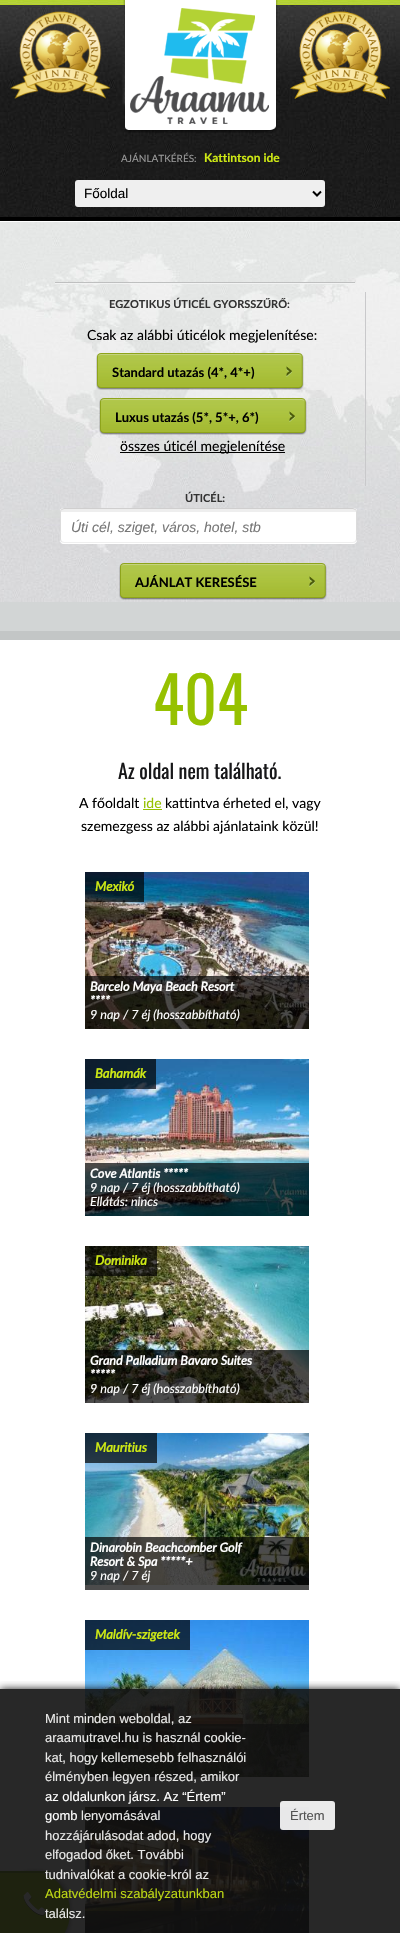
#include "include/core/SkBlurTypes.h"
#include "include/core/SkCanvas.h"
#include "include/core/SkData.h"
#include "include/core/SkFont.h"
#include "include/core/SkFontMgr.h"
#include "include/core/SkImage.h"
#include "include/core/SkMaskFilter.h"
#include "include/core/SkPaint.h"
#include "include/core/SkPathBuilder.h"
#include "include/core/SkTextBlob.h"
#include "include/effects/SkDashPathEffect.h"
#include "include/effects/SkGradientShader.h"
#include "include/utils/SkParsePath.h"

extern sk_sp<SkFontMgr> fontMgr;

void draw(SkCanvas* canvas) {
  SkPaint p;
  p.setAntiAlias(true);
  canvas->clear(SK_ColorWHITE);
  canvas->drawImageRect(SkImages::DeferredFromEncodedData(SkData::MakeFromFileName("images/1.png")), SkRect::MakeLTRB(0, 0, 400, 217), SkSamplingOptions());
  p.setColor(SK_ColorBLACK);
  canvas->drawRect(SkRect::MakeLTRB(0, 217, 400, 221), p);
  canvas->drawImageRect(SkImages::DeferredFromEncodedData(SkData::MakeFromFileName("images/2.png")), SkRect::MakeLTRB(10, 11, 110, 99), SkSamplingOptions());
  canvas->drawImageRect(SkImages::DeferredFromEncodedData(SkData::MakeFromFileName("images/3.png")), SkRect::MakeLTRB(122, 0, 278, 133), SkSamplingOptions());
  canvas->drawImageRect(SkImages::DeferredFromEncodedData(SkData::MakeFromFileName("images/4.png")), SkRect::MakeLTRB(290, 11, 390, 99), SkSamplingOptions());
  p.setColor(SkColorSetRGB(239, 239, 239));
  canvas->drawRoundRect(SkRect::MakeLTRB(75, 180, 325, 207), 3, 3, p);
  p.setStyle(SkPaint::kStroke_Style);
  p.setStrokeWidth(2);
  p.setColor(SK_ColorBLACK);
  canvas->drawPath(SkPathBuilder().moveTo(313, 191.5f).lineTo(317, 195.5f).lineTo(321, 191.5f).detach(), p);
  p.setStyle(SkPaint::kFill_Style);
  p.setColor(SkColorSetRGB(210, 213, 213));
  canvas->drawRect(SkRect::MakeLTRB(0, 602, 400, 631), p);
  canvas->drawImageRect(SkImages::DeferredFromEncodedData(SkData::MakeFromFileName("images/5.png")), SkRect::MakeLTRB(0, 222, 400, 602), SkSamplingOptions());
  p.setColor(SkColorSetRGB(195, 198, 198));
  canvas->drawRect(SkRect::MakeLTRB(0, 631, 400, 640), p);
  canvas->drawImageRect(SkImages::DeferredFromEncodedData(SkData::MakeFromFileName("images/6.png")), SkRect::MakeLTRB(55, 282, 355, 284), SkSamplingOptions());
  p.setColor(SkColorSetRGB(201, 201, 203));
  canvas->drawRect(SkRect::MakeLTRB(365, 292, 366, 486), p);
  canvas->drawImageRect(SkImages::DeferredFromEncodedData(SkData::MakeFromFileName("images/7.png")), SkRect::MakeLTRB(96, 353, 304, 390), SkSamplingOptions());
  canvas->drawImageRect(SkImages::DeferredFromEncodedData(SkData::MakeFromFileName("images/8.png")), SkRect::MakeLTRB(99, 398, 307, 435), SkSamplingOptions());
  p.setColor(SK_ColorBLACK);
  canvas->drawRect(SkRect::MakeLTRB(120, 452, 285, 453), p);
  p.setColor(SK_ColorWHITE);
  canvas->drawPath(SkPathBuilder().moveTo(60, 539).cubicTo(60, 542, 61, 544, 64, 544).lineTo(353, 544).cubicTo(356, 544, 357, 542, 357, 539).cubicTo(357, 541, 355, 543, 353, 543).lineTo(64, 543).cubicTo(62, 543, 60, 541, 60, 539).close().detach(), p);
  canvas->drawRoundRect(SkRect::MakeLTRB(60, 508, 357, 543), 4, 4, p);
  p.setColor(SkColorSetRGB(238, 238, 238));
  canvas->drawRect(SkRect::MakeLTRB(60, 509, 357, 512), p);
  p.setStyle(SkPaint::kStroke_Style);
  p.setStrokeWidth(1);
  p.setColor(SkColorSetRGB(208, 207, 207));
  canvas->drawPath(SkPathBuilder().moveTo(61.5f, 509.5f).lineTo(64, 508.5f).lineTo(353, 508.5f).lineTo(355.5f, 509.5f).detach(), p);
  p.setColor(SkColorSetRGB(219, 219, 219));
  canvas->drawPath(SkPathBuilder().moveTo(355.5f, 509.5f).cubicTo(356, 510, 356.5f, 511, 356.5f, 512).lineTo(356.5f, 539).cubicTo(356.5f, 540, 356, 541, 355.5f, 541.5f).detach(), p);
  p.setColor(SkColorSetRGB(239, 239, 239));
  canvas->drawPath(SkPathBuilder().moveTo(355.5f, 541.5f).lineTo(353, 542.5f).lineTo(64, 542.5f).lineTo(61.5f, 541.5f).detach(), p);
  p.setColor(SkColorSetRGB(219, 219, 219));
  canvas->drawPath(SkPathBuilder().moveTo(61.5f, 541.5f).cubicTo(61, 541, 60.5f, 540, 60.5f, 539).lineTo(60.5f, 512).cubicTo(60.5f, 511, 61, 510, 61.5f, 509.5f).detach(), p);
  canvas->drawImageRect(SkImages::DeferredFromEncodedData(SkData::MakeFromFileName("images/9.png")), SkRect::MakeLTRB(119, 563, 327, 600), SkSamplingOptions());
  p.setStyle(SkPaint::kFill_Style);
  p.setColor(SkColorSetRGB(150, 193, 0));
  canvas->drawRect(SkRect::MakeLTRB(143, 809, 162, 810), p);
  canvas->drawImageRect(SkImages::DeferredFromEncodedData(SkData::MakeFromFileName("images/10.png")), SkRect::MakeLTRB(85, 872, 309, 1029), SkSamplingOptions());
  p.setColor(SkColorSetARGB(179, 0, 0, 0));
  canvas->drawRect(SkRect::MakeLTRB(85, 872, 144, 902), p);
  canvas->drawRect(SkRect::MakeLTRB(85, 976, 309, 1029), p);
  canvas->drawImageRect(SkImages::DeferredFromEncodedData(SkData::MakeFromFileName("images/11.png")), SkRect::MakeLTRB(85, 1059, 309, 1216), SkSamplingOptions());
  canvas->drawRect(SkRect::MakeLTRB(85, 1059, 156, 1089), p);
  canvas->drawRect(SkRect::MakeLTRB(85, 1163, 309, 1216), p);
  canvas->drawImageRect(SkImages::DeferredFromEncodedData(SkData::MakeFromFileName("images/12.png")), SkRect::MakeLTRB(85, 1246, 309, 1403), SkSamplingOptions());
  canvas->drawRect(SkRect::MakeLTRB(85, 1246, 157, 1276), p);
  canvas->drawRect(SkRect::MakeLTRB(85, 1350, 309, 1403), p);
  canvas->drawImageRect(SkImages::DeferredFromEncodedData(SkData::MakeFromFileName("images/13.png")), SkRect::MakeLTRB(85, 1433, 309, 1585), SkSamplingOptions());
  canvas->drawRect(SkRect::MakeLTRB(85, 1433, 157, 1463), p);
  canvas->drawRect(SkRect::MakeLTRB(85, 1537, 309, 1590), p);
  canvas->drawImageRect(SkImages::DeferredFromEncodedData(SkData::MakeFromFileName("images/14.png")), SkRect::MakeLTRB(85, 1620, 309, 1777), SkSamplingOptions());
  canvas->drawRect(SkRect::MakeLTRB(85, 1620, 190, 1650), p);
  canvas->drawRect(SkRect::MakeLTRB(85, 1724, 309, 1777), p);
  canvas->drawImageRect(SkImages::DeferredFromEncodedData(SkData::MakeFromFileName("images/15.png")), SkRect::MakeLTRB(85, 1807, 309, 1933), SkSamplingOptions());
  canvas->drawRect(SkRect::MakeLTRB(85, 1807, 155, 1837), p);
  canvas->drawRect(SkRect::MakeLTRB(85, 1911, 309, 1933), p);
  p.setColor(SkColorSetRGB(136, 136, 136));
  p.setMaskFilter(SkMaskFilter::MakeBlur(kNormal_SkBlurStyle, 2.5f));
  canvas->drawRoundRect(SkRect::MakeLTRB(0, 1871, 70, 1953), 40, 40, p);
  p.setMaskFilter(nullptr);
  p.setColor(SkColorSetRGB(150, 193, 0));
  canvas->drawPath(SkPathBuilder().moveTo(0, 1871).lineTo(30, 1871).cubicTo(52, 1871, 70, 1889, 70, 1911).lineTo(70, 1913).cubicTo(70, 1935, 52, 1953, 30, 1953).lineTo(0, 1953).close().detach(), p);
  canvas->drawImageRect(SkImages::DeferredFromEncodedData(SkData::MakeFromFileName("images/16.png")), SkRect::MakeLTRB(23, 1892, 47, 1916), SkSamplingOptions());
  p.setColor(SkColorSetRGB(99, 142, 0));
  canvas->drawRect(SkRect::MakeLTRB(0, 1871, 50, 1873), p);
  canvas->save();
  canvas->clipRect(SkRect::MakeLTRB(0, 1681, 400, 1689));
  p.setColor(SkColorSetARGB(230, 0, 0, 0));
  p.setMaskFilter(SkMaskFilter::MakeBlur(kNormal_SkBlurStyle, 4));
  canvas->drawRect(SkRect::MakeLTRB(0, 1689, 400, 1933), p);
  p.setMaskFilter(nullptr);
  canvas->restore();
  p.setColor(SkColorSetARGB(230, 17, 17, 17));
  canvas->drawRect(SkRect::MakeLTRB(0, 1689, 400, 1933), p);
  p.setColor(SkColorSetARGB(230, 255, 255, 255));
  canvas->drawRoundRect(SkRect::MakeLTRB(280, 1801, 335, 1830), 3, 3, p);
  SkFont font1(fontMgr->matchFamilyStyle("Lato", SkFontStyle::Normal()), 10);
  font1.setSubpixel(true);
  p.setColor(SkColorSetRGB(153, 153, 153));
  canvas->drawString("AJÁNLATKÉRÉS:", 121, 162, font1, p);
  SkFont font2(fontMgr->matchFamilyStyle("Lato", SkFontStyle::Bold()), 12);
  font2.setSubpixel(true);
  p.setColor(SkColorSetRGB(206, 233, 20));
  canvas->drawString("Kattintson ide", 204, 162, font2, p);
  SkFont font3(fontMgr->matchFamilyStyle("Liberation Sans", SkFontStyle::Normal()), 13.5f);
  font3.setSubpixel(true);
  p.setColor(SK_ColorBLACK);
  canvas->drawString("Főoldal", 84, 198, font3, p);
  SkFont font4(fontMgr->matchFamilyStyle("Lato", SkFontStyle::Bold()), 11);
  font4.setSubpixel(true);
  p.setColor(SkColorSetRGB(51, 51, 51));
  canvas->drawString("EGZOTIKUS ÚTICÉL GYORSSZŰRŐ:", 109, 308, font4, p);
  SkFont font5(fontMgr->matchFamilyStyle("Lato", SkFontStyle::Normal()), 14);
  font5.setSubpixel(true);
  p.setColor(SK_ColorBLACK);
  canvas->drawString("Csak az alábbi úticélok megjelenítése:", 87, 340, font5, p);
  SkFont font6(fontMgr->matchFamilyStyle("Lato", SkFontStyle::Bold()), 13);
  font6.setSubpixel(true);
  canvas->drawString("Standard utazás (4*, 4*+)", 112, 377, font6, p);
  canvas->drawString("Luxus utazás (5*, 5*+, 6*)", 115, 422, font6, p);
  canvas->drawString("összes úticél megjelenítése", 120, 451, font5, p);
  p.setColor(SkColorSetRGB(51, 51, 51));
  canvas->drawString("ÚTICÉL:", 185, 502, font4, p);
  SkFont font7(fontMgr->matchFamilyStyle("Liberation Sans", SkFontStyle::Italic()), 14);
  font7.setSubpixel(true);
  p.setColor(SkColorSetRGB(119, 119, 119));
  canvas->drawString("Úti cél, sziget, város, hotel, stb", 71, 532, font7, p);
  p.setColor(SK_ColorBLACK);
  canvas->drawString("AJÁNLAT KERESÉSE", 135, 587, font6, p);
  SkFont font8(fontMgr->matchFamilyStyle("Oswald", SkFontStyle::Normal()), 64);
  font8.setSubpixel(true);
  p.setColor(SkColorSetRGB(150, 193, 0));
  canvas->drawString("404", 153, 725, font8, p);
  SkFont font9(fontMgr->matchFamilyStyle("Oswald", SkFontStyle::Normal()), 20);
  font9.setSubpixel(true);
  p.setColor(SkColorSetRGB(23, 23, 25));
  canvas->drawString("Az oldal nem található.", 118, 779, font9, p);
  p.setColor(SK_ColorBLACK);
  canvas->drawString("A főoldalt", 79, 808, font5, p);
  p.setColor(SkColorSetRGB(150, 193, 0));
  canvas->drawString("ide", 143, 808, font5, p);
  p.setColor(SK_ColorBLACK);
  canvas->drawString("kattintva érheted el, vagy", 165, 808, font5, p);
  canvas->drawString("szemezgess az alábbi ajánlataink közül!", 81, 831, font5, p);
  SkFont font10(fontMgr->matchFamilyStyle("Lato", SkFontStyle::BoldItalic()), 13);
  font10.setSubpixel(true);
  p.setColor(SkColorSetRGB(206, 233, 20));
  canvas->drawString("Mexikó", 95, 891, font10, p);
  SkFont font11(fontMgr->matchFamilyStyle("Lato", SkFontStyle::BoldItalic()), 12.6f);
  font11.setSubpixel(true);
  p.setColor(SK_ColorWHITE);
  canvas->drawString("Barcelo Maya Beach Resort", 90, 991, font11, p);
  canvas->drawString("****", 90, 1005, font11, p);
  SkFont font12(fontMgr->matchFamilyStyle("Lato", SkFontStyle::Italic()), 12.6f);
  font12.setSubpixel(true);
  canvas->drawString("9 nap / 7 éj (hosszabbítható)", 90, 1019, font12, p);
  p.setColor(SkColorSetRGB(206, 233, 20));
  canvas->drawString("Bahamák", 95, 1078, font10, p);
  p.setColor(SK_ColorWHITE);
  canvas->drawString("Cove Atlantis *****", 90, 1178, font11, p);
  canvas->drawString("9 nap / 7 éj (hosszabbítható)", 90, 1192, font12, p);
  canvas->drawString("Ellátás: nincs", 90, 1206, font12, p);
  p.setColor(SkColorSetRGB(206, 233, 20));
  canvas->drawString("Dominika", 95, 1265, font10, p);
  p.setColor(SK_ColorWHITE);
  canvas->drawString("Grand Palladium Bavaro Suites", 90, 1365, font11, p);
  canvas->drawString("*****", 90, 1379, font11, p);
  canvas->drawString("9 nap / 7 éj (hosszabbítható)", 90, 1393, font12, p);
  p.setColor(SkColorSetRGB(206, 233, 20));
  canvas->drawString("Mauritius", 95, 1452, font10, p);
  p.setColor(SK_ColorWHITE);
  canvas->drawString("Dinarobin Beachcomber Golf", 90, 1552, font11, p);
  canvas->drawString("Resort & Spa *****+", 90, 1566, font11, p);
  canvas->drawString("9 nap / 7 éj", 90, 1580, font12, p);
  p.setColor(SkColorSetRGB(206, 233, 20));
  canvas->drawString("Maldív-szigetek", 95, 1639, font10, p);
  SkFont font13(fontMgr->matchFamilyStyle("Liberation Sans", SkFontStyle::Normal()), 13);
  font13.setSubpixel(true);
  p.setColor(SkColorSetRGB(233, 233, 232));
  canvas->drawString("Mint minden weboldal, az", 45, 1723, font13, p);
  canvas->drawString("araamutravel.hu is használ cookie-", 45, 1742, font13, p);
  canvas->drawString("kat, hogy", 45, 1762, font13, p);
  canvas->drawString("kellemesebb felhasználói", 101, 1762, font13, p);
  canvas->drawString("élményben legyen részed, amikor", 45, 1781, font13, p);
  p.setColor(SK_ColorWHITE);
  canvas->drawString("az oldalunkon jársz. Az “Értem”", 45, 1801, font13, p);
  canvas->drawString("gomb", 45, 1820, font13, p);
  p.setColor(SkColorSetRGB(233, 233, 232));
  canvas->drawString("lenyomásával", 81, 1820, font13, p);
  canvas->drawString("hozzájárulásodat adod, hogy", 45, 1840, font13, p);
  canvas->drawString("elfogadod őket. További", 45, 1859, font13, p);
  canvas->drawString("tudnivalókat a cookie-król az", 45, 1879, font13, p);
  p.setColor(SkColorSetRGB(188, 213, 20));
  canvas->drawString("Adatvédelmi szabályzatunkban", 45, 1898, font13, p);
  p.setColor(SkColorSetRGB(233, 233, 232));
  canvas->drawString("találsz.", 45, 1918, font13, p);
  p.setColor(SkColorSetRGB(83, 83, 83));
  canvas->drawString("Értem", 290, 1820, font13, p);
}
